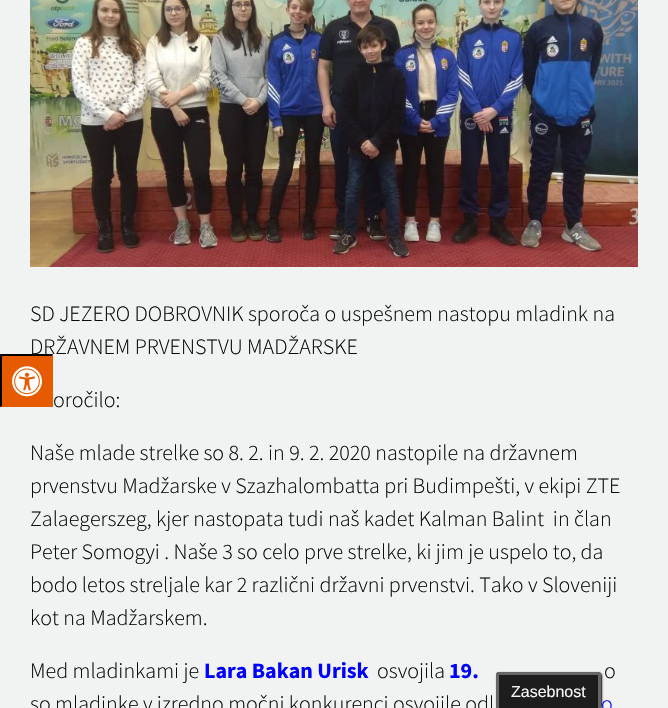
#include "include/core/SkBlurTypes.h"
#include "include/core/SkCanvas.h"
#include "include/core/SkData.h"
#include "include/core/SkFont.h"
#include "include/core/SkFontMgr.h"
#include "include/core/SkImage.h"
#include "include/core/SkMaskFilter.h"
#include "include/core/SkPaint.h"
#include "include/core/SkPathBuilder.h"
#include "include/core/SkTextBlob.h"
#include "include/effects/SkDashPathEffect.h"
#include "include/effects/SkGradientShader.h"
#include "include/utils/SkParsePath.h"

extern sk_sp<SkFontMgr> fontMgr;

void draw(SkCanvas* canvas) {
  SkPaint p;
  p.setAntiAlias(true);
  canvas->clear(SkColorSetRGB(240, 243, 242));
  canvas->drawImageRect(SkImages::DeferredFromEncodedData(SkData::MakeFromFileName("images/2.png")), SkRect::MakeLTRB(30, 0, 638, 267), SkSamplingOptions());
  p.setColor(SK_ColorBLACK);
  p.setMaskFilter(SkMaskFilter::MakeBlur(kNormal_SkBlurStyle, 1));
  canvas->drawRoundRect(SkRect::MakeLTRB(497, 673, 602, 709), 3, 3, p);
  p.setMaskFilter(nullptr);
  p.setColor(SkColorSetRGB(29, 29, 29));
  canvas->drawPath(SkPathBuilder().moveTo(499, 672).lineTo(598, 672).cubicTo(599.5f, 672, 601, 673.5f, 601, 675).lineTo(601, 708).lineTo(496, 708).lineTo(496, 675).cubicTo(496, 673.5f, 497.5f, 672, 499, 672).close().detach(), p);
  p.setColor(SkColorSetRGB(102, 102, 102));
  canvas->drawPath(SkPathBuilder(SkPathFillType::kEvenOdd).moveTo(499, 672).lineTo(598, 672).cubicTo(600, 672, 601, 673, 601, 675).lineTo(601, 708).lineTo(496, 708).lineTo(496, 675).cubicTo(496, 673, 497, 672, 499, 672).close().moveTo(499, 675).lineTo(598, 675).lineTo(598, 708).lineTo(499, 708).close().detach(), p);
  SkFont font1(fontMgr->matchFamilyStyle("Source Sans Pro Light", SkFontStyle(300, SkFontStyle::kNormal_Width, SkFontStyle::kUpright_Slant)), 22);
  font1.setSubpixel(true);
  p.setColor(SkColorSetRGB(10, 10, 10));
  canvas->drawString("SD JEZERO DOBROVNIK sporoča o uspešnem nastopu mladink na", 30, 321, font1, p);
  canvas->drawString("DRŽAVNEM PRVENSTVU MADŽARSKE", 30, 354, font1, p);
  p.setColor(SkColorSetRGB(230, 91, 0));
  canvas->drawRect(SkRect::MakeLTRB(0, 354, 53, 407), p);
  canvas->drawImageRect(SkImages::DeferredFromEncodedData(SkData::MakeFromFileName("images/1.png")), SkRect::MakeLTRB(12, 366, 42, 397), SkSamplingOptions());
  p.setColor(SK_ColorBLACK);
  canvas->drawPath(SkPathBuilder().moveTo(0, 354).lineTo(53, 354).lineTo(52, 356).lineTo(2, 356).close().detach(), p);
  canvas->drawPath(SkPathBuilder().moveTo(0, 407).lineTo(0, 354).lineTo(2, 356).lineTo(2, 406).close().detach(), p);
  p.setColor(SkColorSetRGB(230, 91, 0));
  canvas->drawPath(SkPathBuilder().moveTo(53, 354).lineTo(53, 407).lineTo(52, 406).lineTo(52, 356).close().detach(), p);
  p.setColor(SkColorSetRGB(10, 10, 10));
  canvas->drawString("oročilo:", 53, 407, font1, p);
  canvas->drawString("Naše mlade strelke so 8. 2. in 9. 2. 2020 nastopile na državnem", 30, 460, font1, p);
  canvas->drawString("prvenstvu Madžarske v Szazhalombatta pri Budimpešti, v ekipi ZTE", 30, 493, font1, p);
  canvas->drawString("Zalaegerszeg, kjer nastopata tudi naš kadet Kalman Balint  in član", 30, 526, font1, p);
  canvas->drawString("Peter Somogyi . Naše 3 so celo prve strelke, ki jim je uspelo to, da", 30, 559, font1, p);
  canvas->drawString("bodo letos streljale kar 2 različni državni prvenstvi. Tako v Sloveniji", 30, 592, font1, p);
  canvas->drawString("kot na Madžarskem.", 30, 625, font1, p);
  canvas->drawString("Med mladinkami je", 30, 678, font1, p);
  SkFont font2(fontMgr->matchFamilyStyle("Source Sans Pro", SkFontStyle::Bold()), 22);
  font2.setSubpixel(true);
  p.setColor(SkColorSetRGB(0, 0, 255));
  canvas->drawString("Lara Bakan Urisk", 204, 678, font2, p);
  p.setColor(SkColorSetRGB(10, 10, 10));
  canvas->drawString("osvojila", 377, 678, font1, p);
  p.setColor(SkColorSetRGB(0, 0, 255));
  canvas->drawString("19.", 449, 678, font2, p);
  p.setColor(SkColorSetRGB(10, 10, 10));
  canvas->drawString("o", 604, 678, font1, p);
  canvas->drawString("so mladinke v izredno močni konkurenci osvojile odl", 30, 711, font1, p);
  p.setColor(SkColorSetRGB(0, 0, 255));
  canvas->drawString("o", 601, 711, font1, p);
  SkFont font3(fontMgr->matchFamilyStyle("Liberation Sans", SkFontStyle::Normal()), 16);
  font3.setSubpixel(true);
  p.setColor(SkColorSetRGB(245, 245, 245));
  canvas->drawString("Zasebnost", 511, 697, font3, p);
}
